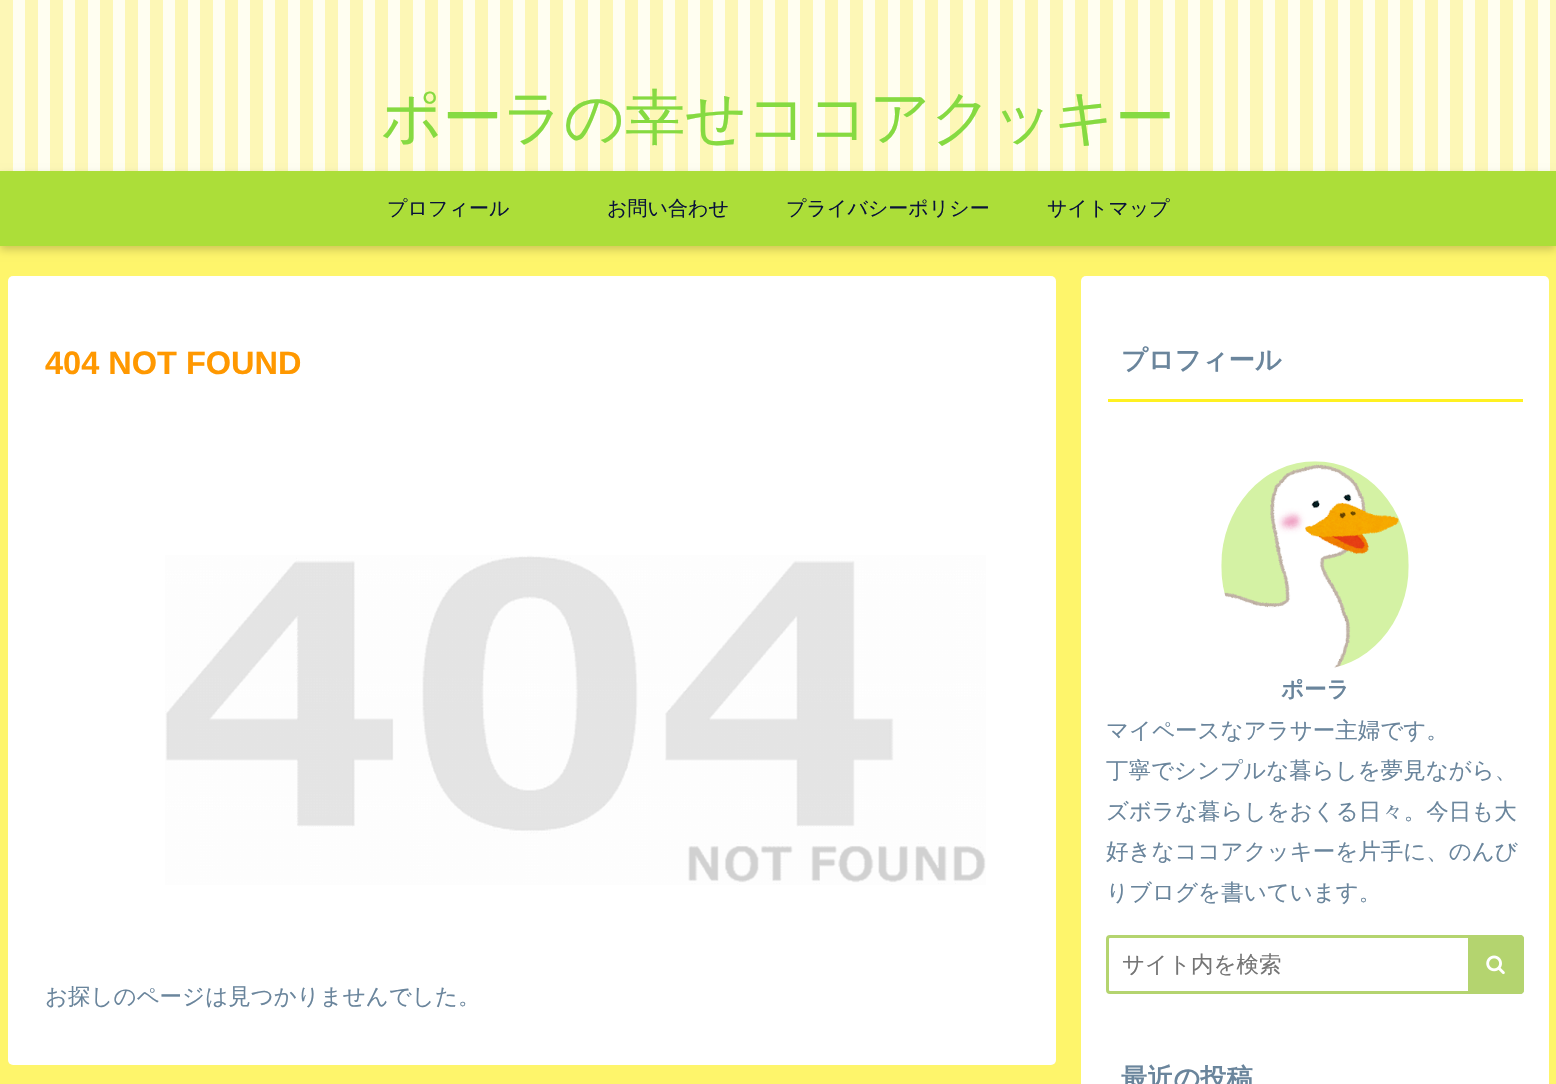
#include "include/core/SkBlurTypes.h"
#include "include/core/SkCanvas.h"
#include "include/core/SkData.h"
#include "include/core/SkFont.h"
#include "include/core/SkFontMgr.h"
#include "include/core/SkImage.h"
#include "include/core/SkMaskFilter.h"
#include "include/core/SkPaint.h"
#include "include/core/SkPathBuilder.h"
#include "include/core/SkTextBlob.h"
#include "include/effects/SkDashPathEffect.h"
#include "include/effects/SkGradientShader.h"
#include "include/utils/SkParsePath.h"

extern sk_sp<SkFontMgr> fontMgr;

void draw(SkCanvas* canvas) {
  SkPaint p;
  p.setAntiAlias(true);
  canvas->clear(SkColorSetRGB(254, 245, 107));
  canvas->drawImageRect(SkImages::DeferredFromEncodedData(SkData::MakeFromFileName("images/1.png")), SkRect::MakeLTRB(0, 0, 1556, 171), SkSamplingOptions());
  p.setColor(SkColorSetARGB(46, 0, 0, 0));
  p.setMaskFilter(SkMaskFilter::MakeBlur(kNormal_SkBlurStyle, 4));
  canvas->drawRect(SkRect::MakeLTRB(0, 175, 1556, 250), p);
  p.setMaskFilter(nullptr);
  p.setColor(SkColorSetRGB(172, 222, 57));
  canvas->drawRect(SkRect::MakeLTRB(0, 171, 1556, 246), p);
  p.setColor(SK_ColorWHITE);
  canvas->drawRoundRect(SkRect::MakeLTRB(8, 276, 1056, 1065), 5, 5, p);
  canvas->drawImageRect(SkImages::DeferredFromEncodedData(SkData::MakeFromFileName("images/2.png")), SkRect::MakeLTRB(165, 555, 986, 885), SkSamplingOptions());
  canvas->drawRoundRect(SkRect::MakeLTRB(1081, 276, 1549, 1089), 5, 5, p);
  p.setColor(SkColorSetRGB(255, 241, 34));
  canvas->drawRect(SkRect::MakeLTRB(1108, 399, 1523, 402), p);
  canvas->drawImageRect(SkImages::DeferredFromEncodedData(SkData::MakeFromFileName("images/3.png")), SkRect::MakeLTRB(1221, 461, 1409, 668), SkSamplingOptions());
  p.setStyle(SkPaint::kStroke_Style);
  p.setStrokeWidth(3);
  p.setColor(SkColorSetRGB(180, 212, 111));
  canvas->drawRoundRect(SkRect::MakeLTRB(1107.5f, 936.5f, 1522.5f, 992.5f), 2.5f, 2.5f, p);
  p.setStyle(SkPaint::kFill_Style);
  canvas->drawPath(SkPathBuilder().moveTo(1468, 935).lineTo(1520, 935).cubicTo(1522, 935, 1524, 937, 1524, 939).lineTo(1524, 990).cubicTo(1524, 992, 1522, 994, 1520, 994).lineTo(1468, 994).close().detach(), p);
  canvas->drawImageRect(SkImages::DeferredFromEncodedData(SkData::MakeFromFileName("images/4.png")), SkRect::MakeLTRB(1486, 955, 1505, 975), SkSamplingOptions());
  SkFont font1(fontMgr->matchFamilyStyle("WenQuanYi Zen Hei", SkFontStyle(500, SkFontStyle::kNormal_Width, SkFontStyle::kUpright_Slant)), 60);
  font1.setSubpixel(true);
  p.setColor(SkColorSetRGB(134, 218, 65));
  canvas->drawString("ポーラの幸せココアクッキー", 381, 138, font1, p);
  SkFont font2(fontMgr->matchFamilyStyle("WenQuanYi Zen Hei", SkFontStyle(500, SkFontStyle::kNormal_Width, SkFontStyle::kUpright_Slant)), 20);
  font2.setSubpixel(true);
  p.setColor(SkColorSetRGB(9, 18, 58));
  canvas->drawString("プロフィール", 387, 215, font2, p);
  canvas->drawString("お問い合わせ", 607, 215, font2, p);
  canvas->drawString("プライバシーポリシー", 786, 215, font2, p);
  canvas->drawString("サイトマップ", 1047, 215, font2, p);
  SkFont font3(fontMgr->matchFamilyStyle("Liberation Sans", SkFontStyle::Bold()), 32.5f);
  font3.setSubpixel(true);
  p.setColor(SkColorSetRGB(255, 152, 0));
  canvas->drawString("404 NOT FOUND", 45, 374, font3, p);
  SkFont font4(fontMgr->matchFamilyStyle("WenQuanYi Zen Hei", SkFontStyle(500, SkFontStyle::kNormal_Width, SkFontStyle::kUpright_Slant)), 22.5f);
  font4.setSubpixel(true);
  p.setColor(SkColorSetRGB(106, 133, 156));
  canvas->drawString("お探しのページは見つかりませんでした。", 45, 1004, font4, p);
  SkFont font5(fontMgr->matchFamilyStyle("WenQuanYi Zen Hei", SkFontStyle::Bold()), 26.25f);
  font5.setSubpixel(true);
  canvas->drawString("プロフィール", 1121, 369, font5, p);
  SkFont font6(fontMgr->matchFamilyStyle("WenQuanYi Zen Hei", SkFontStyle::Bold()), 22.5f);
  font6.setSubpixel(true);
  canvas->drawString("ポーラ", 1281, 697, font6, p);
  canvas->drawString("マイペースなアラサー主婦です。", 1106, 738, font4, p);
  canvas->drawString("丁寧でシンプルな暮らしを夢見ながら、", 1106, 778, font4, p);
  canvas->drawString("ズボラな暮らしをおくる日々。今日も大", 1106, 819, font4, p);
  canvas->drawString("好きなココアクッキーを片手に、のんび", 1106, 859, font4, p);
  canvas->drawString("りブログを書いています。", 1106, 900, font4, p);
  p.setColor(SkColorSetRGB(117, 117, 117));
  canvas->drawString("サイト内を検索", 1122, 972, font4, p);
  p.setColor(SkColorSetRGB(106, 133, 156));
  canvas->drawString("最近の投稿", 1121, 1087, font5, p);
}
